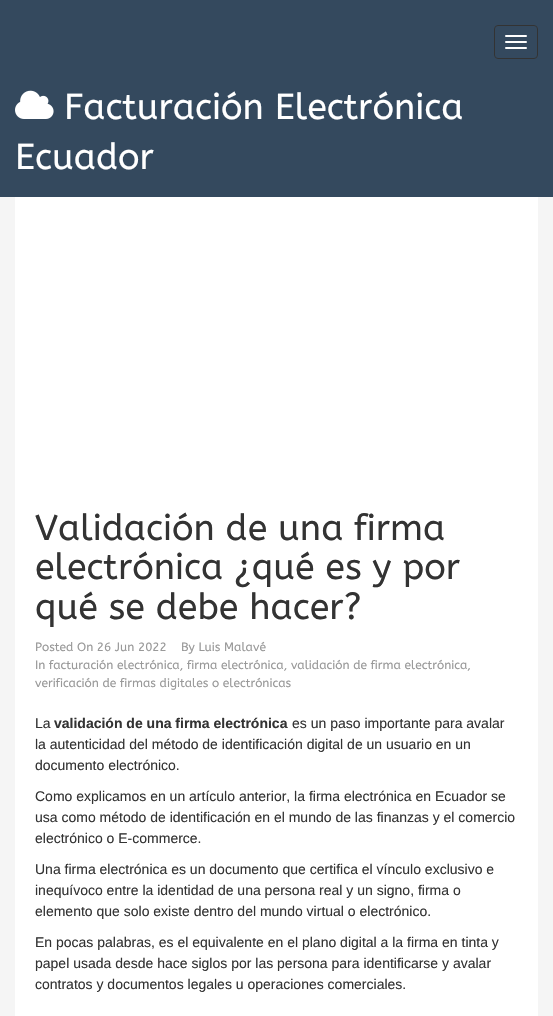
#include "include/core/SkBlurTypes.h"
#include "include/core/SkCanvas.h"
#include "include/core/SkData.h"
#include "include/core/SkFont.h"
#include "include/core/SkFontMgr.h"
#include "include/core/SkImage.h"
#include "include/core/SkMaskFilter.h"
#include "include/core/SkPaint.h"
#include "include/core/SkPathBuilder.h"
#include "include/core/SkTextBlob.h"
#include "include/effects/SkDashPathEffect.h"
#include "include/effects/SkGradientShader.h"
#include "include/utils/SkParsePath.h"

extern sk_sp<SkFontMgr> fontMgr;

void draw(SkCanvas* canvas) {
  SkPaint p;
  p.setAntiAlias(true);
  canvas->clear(SkColorSetRGB(245, 245, 245));
  p.setColor(SkColorSetRGB(52, 73, 94));
  canvas->drawRect(SkRect::MakeLTRB(0, 0, 553, 197), p);
  p.setStyle(SkPaint::kStroke_Style);
  p.setStrokeWidth(1);
  p.setColor(SkColorSetRGB(51, 51, 51));
  canvas->drawRoundRect(SkRect::MakeLTRB(494.5f, 25.5f, 537.5f, 58.5f), 3.5f, 3.5f, p);
  p.setStyle(SkPaint::kFill_Style);
  p.setColor(SK_ColorWHITE);
  canvas->drawRoundRect(SkRect::MakeLTRB(505, 35, 527, 37), 1, 1, p);
  canvas->drawRoundRect(SkRect::MakeLTRB(505, 41, 527, 43), 1, 1, p);
  canvas->drawRoundRect(SkRect::MakeLTRB(505, 47, 527, 49), 1, 1, p);
  canvas->drawImageRect(SkImages::DeferredFromEncodedData(SkData::MakeFromFileName("images/1.png")), SkRect::MakeLTRB(15, 90, 54, 119), SkSamplingOptions());
  canvas->drawRect(SkRect::MakeLTRB(15, 197, 538, 1016), p);
  SkFont font1(fontMgr->matchFamilyStyle("ABeeZee", SkFontStyle::Normal()), 36);
  font1.setSubpixel(true);
  canvas->drawString("Facturación Electrónica", 64, 119, font1, p);
  canvas->drawString("Ecuador", 15, 169, font1, p);
  p.setColor(SkColorSetRGB(51, 51, 51));
  canvas->drawString("Validación de una firma", 35, 540, font1, p);
  canvas->drawString("electrónica ¿qué es y por", 35, 579, font1, p);
  canvas->drawString("qué se debe hacer?", 35, 619, font1, p);
  SkFont font2(fontMgr->matchFamilyStyle("ABeeZee", SkFontStyle::Normal()), 12);
  font2.setSubpixel(true);
  p.setColor(SkColorSetRGB(153, 153, 153));
  canvas->drawString("Posted On 26 Jun 2022", 35, 651, font2, p);
  canvas->drawString("By Luis Malavé", 181, 651, font2, p);
  canvas->drawString("In facturación electrónica, firma electrónica, validación de firma electrónica,", 35, 669, font2, p);
  canvas->drawString("verificación de firmas digitales o electrónicas", 35, 687, font2, p);
  SkFont font3(fontMgr->matchFamilyStyle("Liberation Sans", SkFontStyle::Normal()), 14);
  font3.setSubpixel(true);
  p.setColor(SkColorSetRGB(51, 51, 51));
  canvas->drawString("La", 35, 728, font3, p);
  SkFont font4(fontMgr->matchFamilyStyle("Liberation Sans", SkFontStyle::Bold()), 14);
  font4.setSubpixel(true);
  canvas->drawString("validación de una firma electrónica", 54, 728, font4, p);
  canvas->drawString("es un paso importante para avalar", 292, 728, font3, p);
  canvas->drawString("la autenticidad del método de identificación digital de un usuario en un", 35, 749, font3, p);
  canvas->drawString("documento electrónico.", 35, 770, font3, p);
  canvas->drawString("Como explicamos en un artículo anterior, la firma electrónica en Ecuador se", 35, 801, font3, p);
  canvas->drawString("usa como método de identificación en el mundo de las finanzas y el comercio", 35, 822, font3, p);
  canvas->drawString("electrónico o E-commerce.", 35, 843, font3, p);
  canvas->drawString("Una firma electrónica es un documento que certifica el vínculo exclusivo e", 35, 874, font3, p);
  canvas->drawString("inequívoco entre la identidad de una persona real y un signo, firma o", 35, 895, font3, p);
  canvas->drawString("elemento que solo existe dentro del mundo virtual o electrónico.", 35, 916, font3, p);
  canvas->drawString("En pocas palabras, es el equivalente en el plano digital a la firma en tinta y", 35, 947, font3, p);
  canvas->drawString("papel usada desde hace siglos por las persona para identificarse y avalar", 35, 968, font3, p);
  canvas->drawString("contratos y documentos legales u operaciones comerciales.", 35, 989, font3, p);
}
